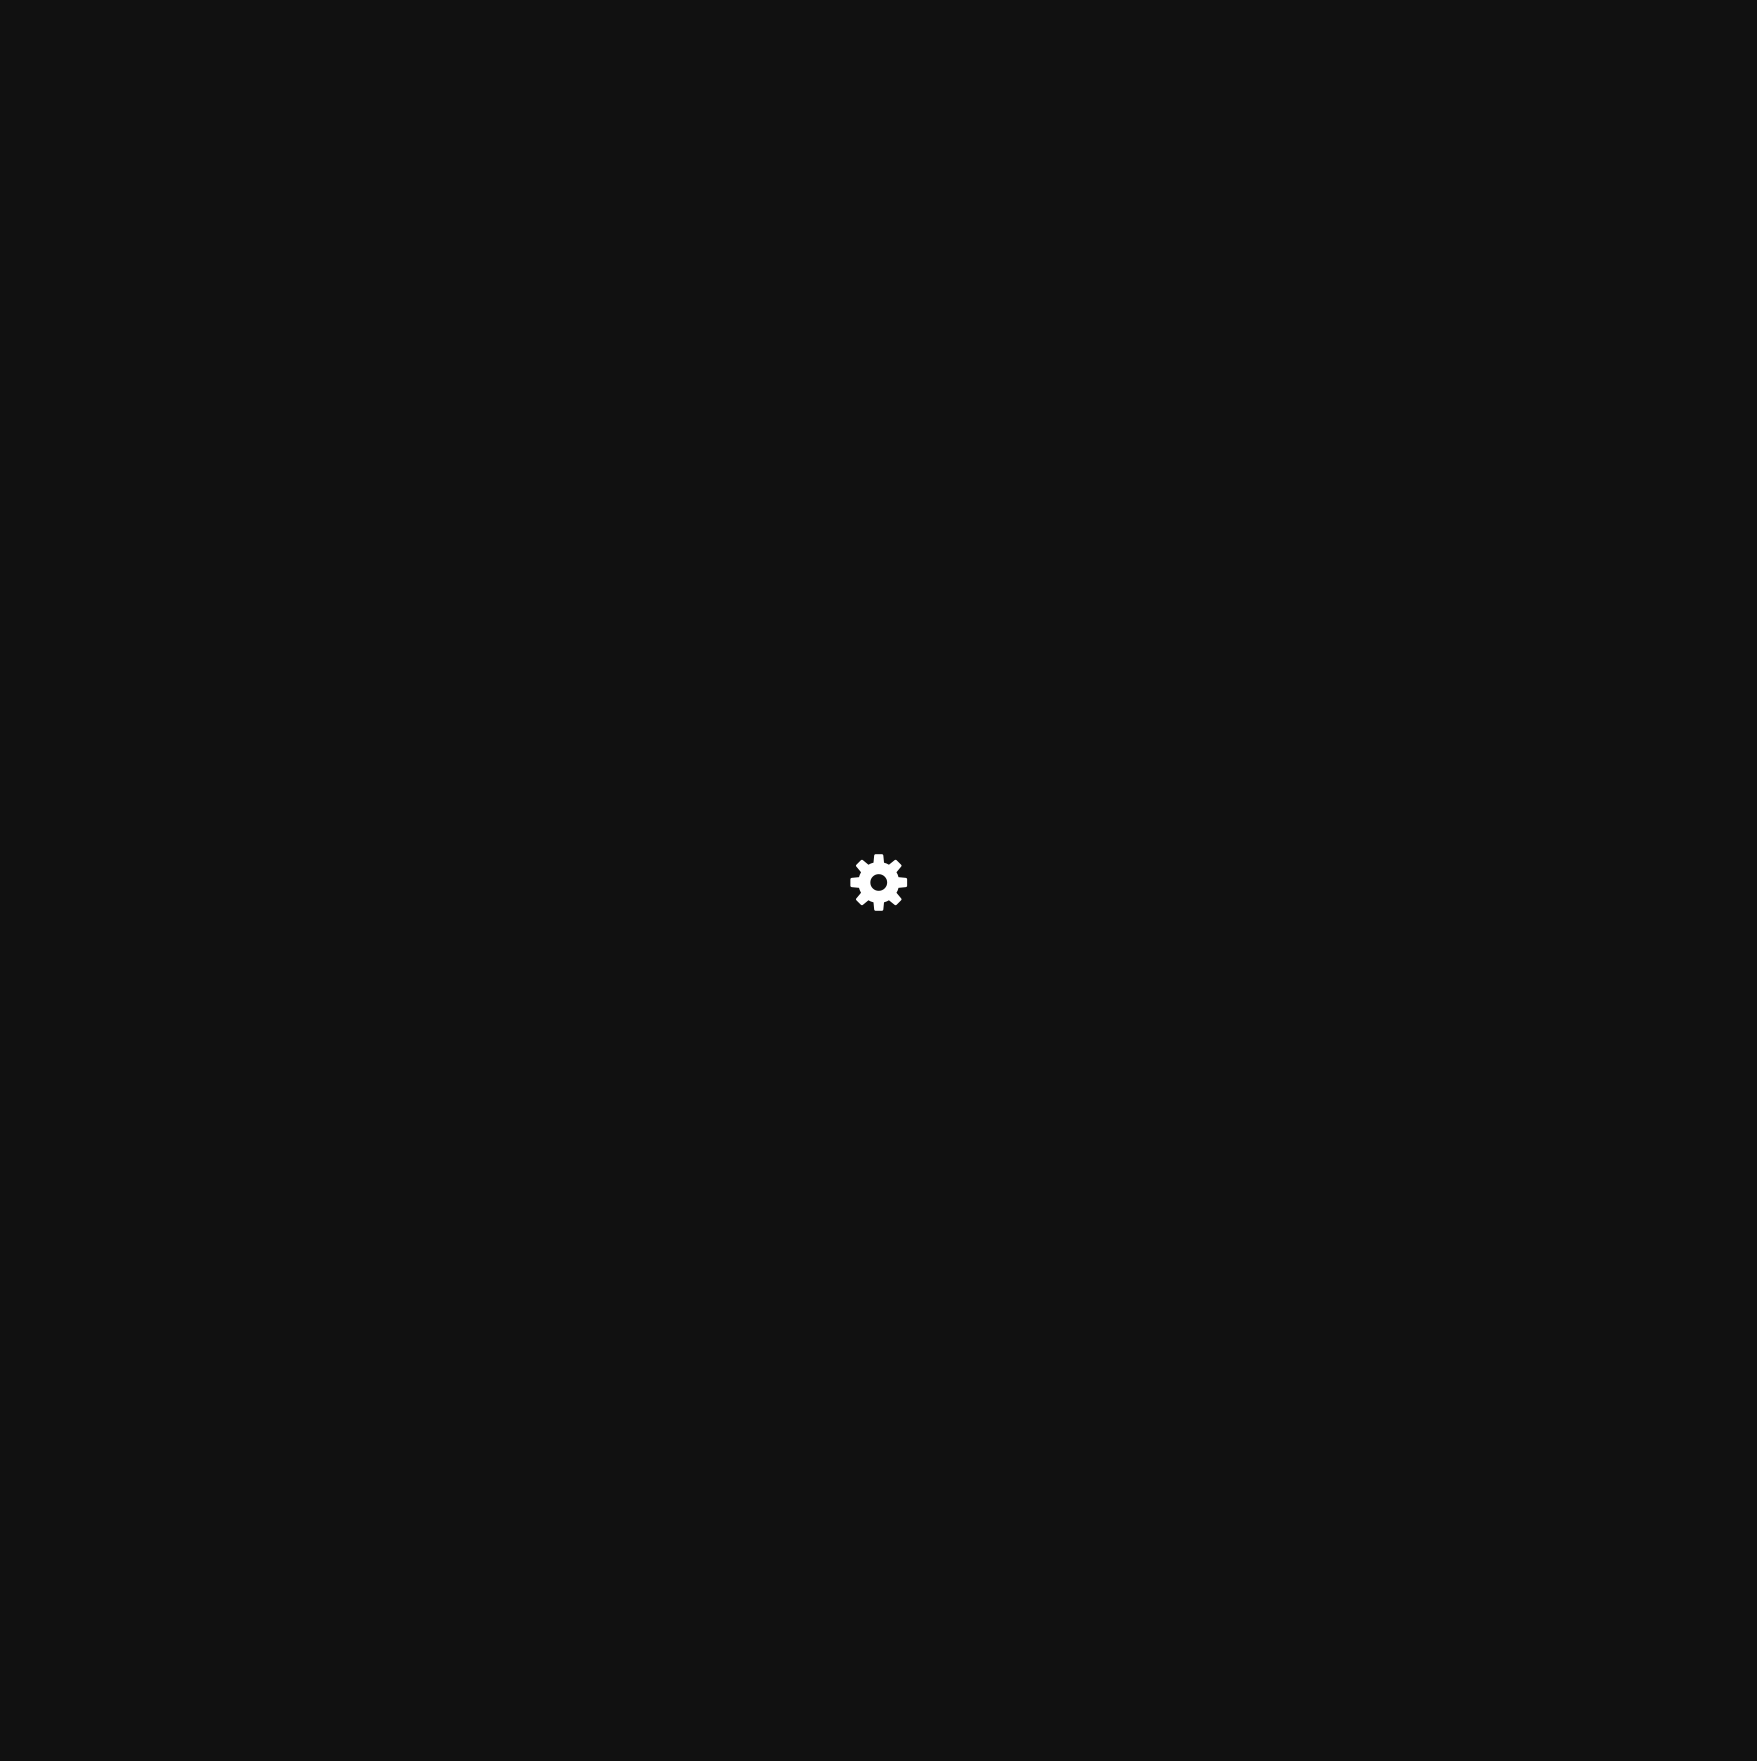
#include "include/core/SkBlurTypes.h"
#include "include/core/SkCanvas.h"
#include "include/core/SkData.h"
#include "include/core/SkFont.h"
#include "include/core/SkFontMgr.h"
#include "include/core/SkImage.h"
#include "include/core/SkMaskFilter.h"
#include "include/core/SkPaint.h"
#include "include/core/SkPathBuilder.h"
#include "include/core/SkTextBlob.h"
#include "include/effects/SkDashPathEffect.h"
#include "include/effects/SkGradientShader.h"
#include "include/utils/SkParsePath.h"

extern sk_sp<SkFontMgr> fontMgr;

void draw(SkCanvas* canvas) {
  SkPaint p;
  p.setAntiAlias(true);
  canvas->clear(SkColorSetRGB(17, 17, 17));
  canvas->drawImageRect(SkImages::DeferredFromEncodedData(SkData::MakeFromFileName("images/1.png")), SkRect::MakeLTRB(850, 854, 908, 911), SkSamplingOptions());
}
